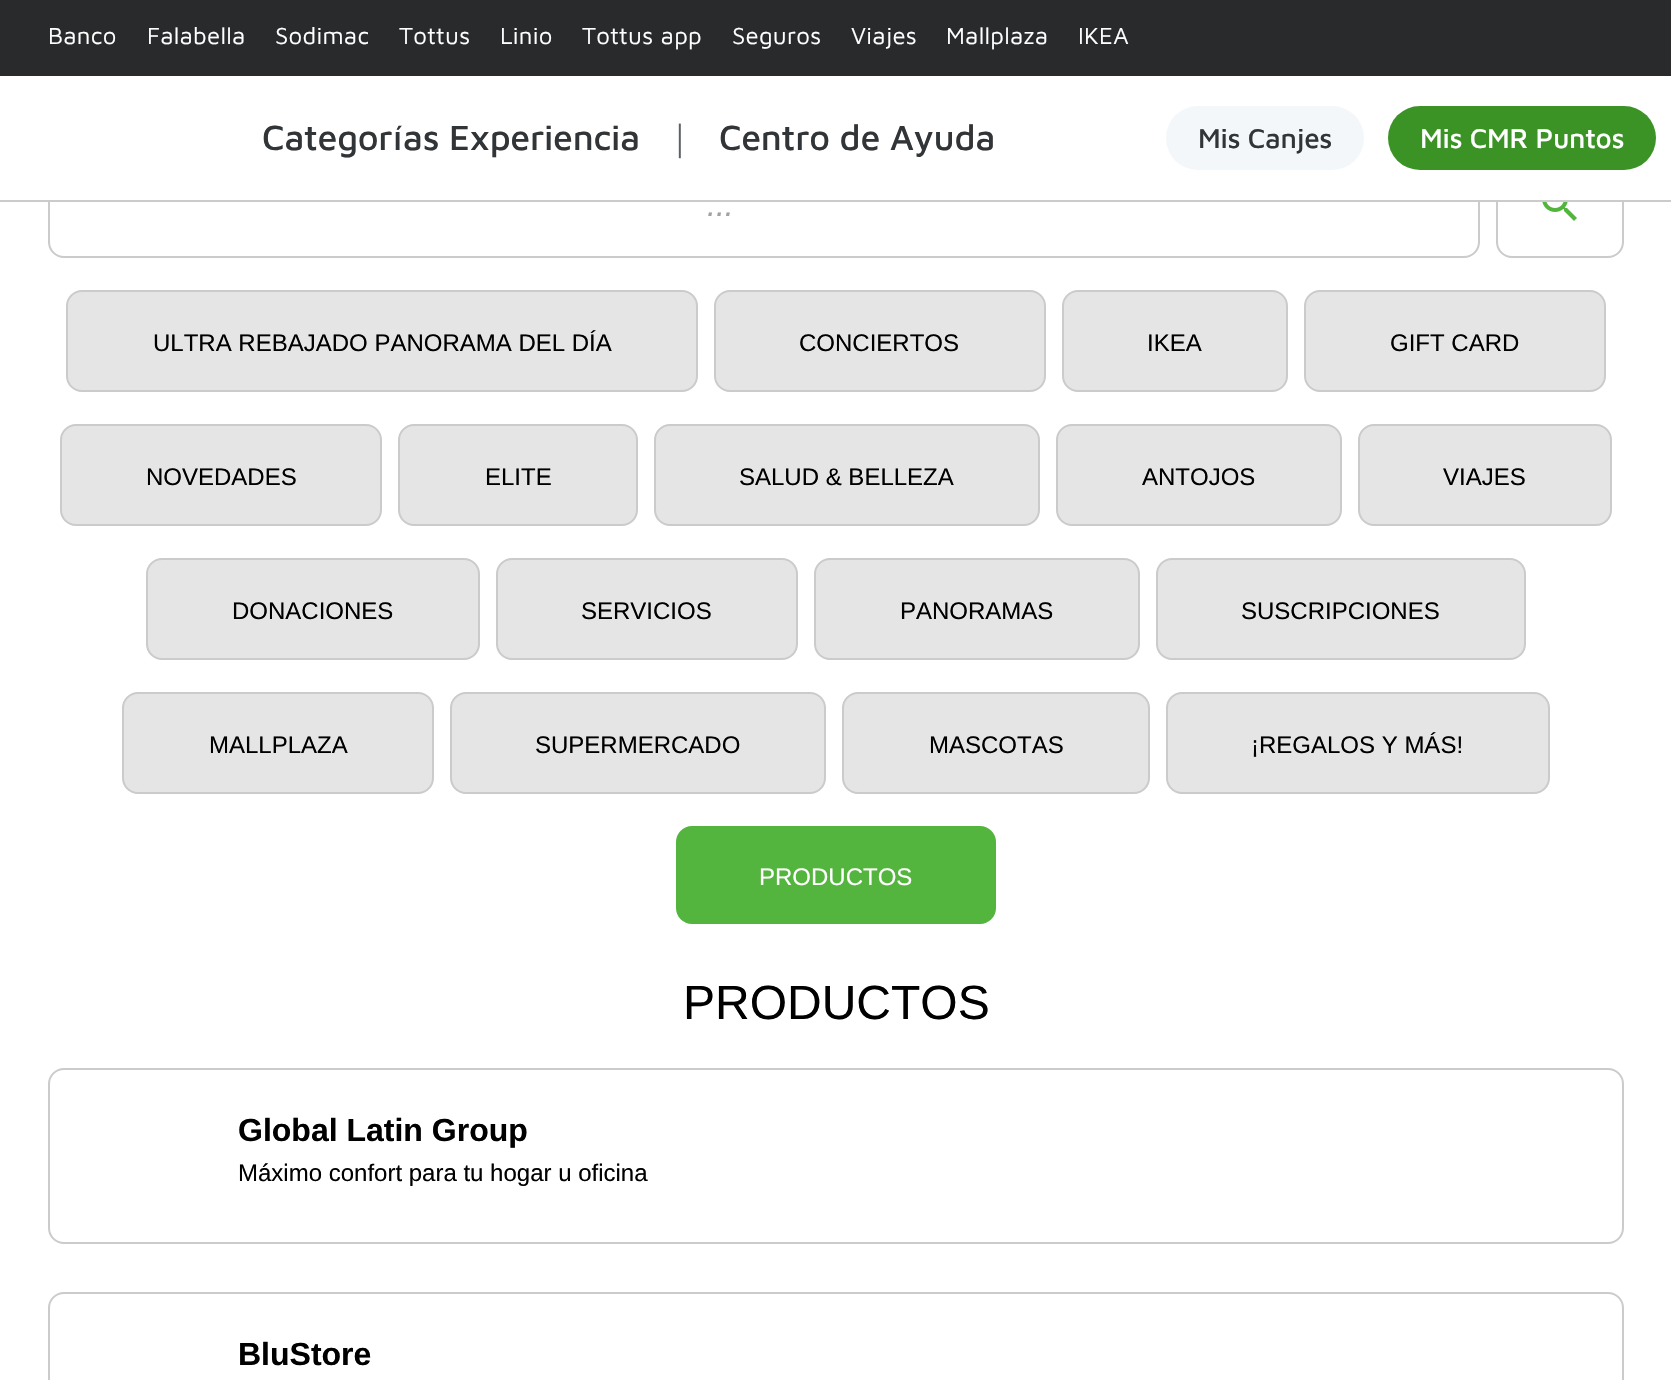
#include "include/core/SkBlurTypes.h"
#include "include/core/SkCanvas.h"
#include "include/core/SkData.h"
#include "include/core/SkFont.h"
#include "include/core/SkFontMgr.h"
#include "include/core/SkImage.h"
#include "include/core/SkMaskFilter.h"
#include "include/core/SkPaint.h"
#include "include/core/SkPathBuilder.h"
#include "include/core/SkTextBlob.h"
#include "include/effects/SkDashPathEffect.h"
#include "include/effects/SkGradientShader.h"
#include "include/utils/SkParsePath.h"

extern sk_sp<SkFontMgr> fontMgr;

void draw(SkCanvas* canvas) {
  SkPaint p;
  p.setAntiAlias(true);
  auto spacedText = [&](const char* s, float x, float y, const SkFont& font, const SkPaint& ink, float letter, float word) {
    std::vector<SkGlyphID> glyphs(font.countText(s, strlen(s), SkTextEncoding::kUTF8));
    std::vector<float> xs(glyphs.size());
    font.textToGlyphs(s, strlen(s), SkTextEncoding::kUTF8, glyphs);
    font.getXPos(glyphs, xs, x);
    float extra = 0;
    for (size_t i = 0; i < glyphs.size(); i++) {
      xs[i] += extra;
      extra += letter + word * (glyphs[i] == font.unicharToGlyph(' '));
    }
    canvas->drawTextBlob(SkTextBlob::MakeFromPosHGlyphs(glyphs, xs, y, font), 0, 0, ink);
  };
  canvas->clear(SK_ColorWHITE);
  p.setStyle(SkPaint::kStroke_Style);
  p.setStrokeWidth(2);
  p.setColor(SkColorSetRGB(203, 203, 203));
  canvas->drawRoundRect(SkRect::MakeLTRB(49, 141, 1479, 257), 15, 15, p);
  canvas->drawRoundRect(SkRect::MakeLTRB(1497, 151, 1623, 257), 15, 15, p);
  p.setStyle(SkPaint::kFill_Style);
  p.setColor(SK_ColorWHITE);
  canvas->drawRect(SkRect::MakeLTRB(48, 140, 1624, 200), p);
  p.setColor(SkColorSetRGB(203, 203, 203));
  canvas->drawRect(SkRect::MakeLTRB(0, 200, 1671, 202), p);
  p.setColor(SkColorSetRGB(40, 42, 44));
  canvas->drawRect(SkRect::MakeLTRB(0, 0, 1671, 76), p);
  p.setColor(SkColorSetRGB(244, 247, 249));
  canvas->drawRoundRect(SkRect::MakeLTRB(1166, 106, 1364, 170), 32, 32, p);
  p.setColor(SkColorSetRGB(59, 147, 38));
  canvas->drawRoundRect(SkRect::MakeLTRB(1388, 106, 1656, 170), 32, 32, p);
  canvas->drawImageRect(SkImages::DeferredFromEncodedData(SkData::MakeFromFileName("images/1.png")), SkRect::MakeLTRB(1542, 202, 1577, 221), SkSamplingOptions());
  p.setColor(SkColorSetRGB(229, 229, 229));
  canvas->drawRoundRect(SkRect::MakeLTRB(67, 291, 697, 391), 15, 15, p);
  p.setStyle(SkPaint::kStroke_Style);
  p.setColor(SkColorSetRGB(203, 203, 203));
  canvas->drawRoundRect(SkRect::MakeLTRB(67, 291, 697, 391), 15, 15, p);
  p.setStyle(SkPaint::kFill_Style);
  p.setColor(SkColorSetRGB(229, 229, 229));
  canvas->drawRoundRect(SkRect::MakeLTRB(715, 291, 1045, 391), 15, 15, p);
  p.setStyle(SkPaint::kStroke_Style);
  p.setColor(SkColorSetRGB(203, 203, 203));
  canvas->drawRoundRect(SkRect::MakeLTRB(715, 291, 1045, 391), 15, 15, p);
  p.setStyle(SkPaint::kFill_Style);
  p.setColor(SkColorSetRGB(229, 229, 229));
  canvas->drawRoundRect(SkRect::MakeLTRB(1063, 291, 1287, 391), 15, 15, p);
  p.setStyle(SkPaint::kStroke_Style);
  p.setColor(SkColorSetRGB(203, 203, 203));
  canvas->drawRoundRect(SkRect::MakeLTRB(1063, 291, 1287, 391), 15, 15, p);
  p.setStyle(SkPaint::kFill_Style);
  p.setColor(SkColorSetRGB(229, 229, 229));
  canvas->drawRoundRect(SkRect::MakeLTRB(1305, 291, 1605, 391), 15, 15, p);
  p.setStyle(SkPaint::kStroke_Style);
  p.setColor(SkColorSetRGB(203, 203, 203));
  canvas->drawRoundRect(SkRect::MakeLTRB(1305, 291, 1605, 391), 15, 15, p);
  p.setStyle(SkPaint::kFill_Style);
  p.setColor(SkColorSetRGB(229, 229, 229));
  canvas->drawRoundRect(SkRect::MakeLTRB(61, 425, 381, 525), 15, 15, p);
  p.setStyle(SkPaint::kStroke_Style);
  p.setColor(SkColorSetRGB(203, 203, 203));
  canvas->drawRoundRect(SkRect::MakeLTRB(61, 425, 381, 525), 15, 15, p);
  p.setStyle(SkPaint::kFill_Style);
  p.setColor(SkColorSetRGB(229, 229, 229));
  canvas->drawRoundRect(SkRect::MakeLTRB(399, 425, 637, 525), 15, 15, p);
  p.setStyle(SkPaint::kStroke_Style);
  p.setColor(SkColorSetRGB(203, 203, 203));
  canvas->drawRoundRect(SkRect::MakeLTRB(399, 425, 637, 525), 15, 15, p);
  p.setStyle(SkPaint::kFill_Style);
  p.setColor(SkColorSetRGB(229, 229, 229));
  canvas->drawRoundRect(SkRect::MakeLTRB(655, 425, 1039, 525), 15, 15, p);
  p.setStyle(SkPaint::kStroke_Style);
  p.setColor(SkColorSetRGB(203, 203, 203));
  canvas->drawRoundRect(SkRect::MakeLTRB(655, 425, 1039, 525), 15, 15, p);
  p.setStyle(SkPaint::kFill_Style);
  p.setColor(SkColorSetRGB(229, 229, 229));
  canvas->drawRoundRect(SkRect::MakeLTRB(1057, 425, 1341, 525), 15, 15, p);
  p.setStyle(SkPaint::kStroke_Style);
  p.setColor(SkColorSetRGB(203, 203, 203));
  canvas->drawRoundRect(SkRect::MakeLTRB(1057, 425, 1341, 525), 15, 15, p);
  p.setStyle(SkPaint::kFill_Style);
  p.setColor(SkColorSetRGB(229, 229, 229));
  canvas->drawRoundRect(SkRect::MakeLTRB(1359, 425, 1611, 525), 15, 15, p);
  p.setStyle(SkPaint::kStroke_Style);
  p.setColor(SkColorSetRGB(203, 203, 203));
  canvas->drawRoundRect(SkRect::MakeLTRB(1359, 425, 1611, 525), 15, 15, p);
  p.setStyle(SkPaint::kFill_Style);
  p.setColor(SkColorSetRGB(229, 229, 229));
  canvas->drawRoundRect(SkRect::MakeLTRB(147, 559, 479, 659), 15, 15, p);
  p.setStyle(SkPaint::kStroke_Style);
  p.setColor(SkColorSetRGB(203, 203, 203));
  canvas->drawRoundRect(SkRect::MakeLTRB(147, 559, 479, 659), 15, 15, p);
  p.setStyle(SkPaint::kFill_Style);
  p.setColor(SkColorSetRGB(229, 229, 229));
  canvas->drawRoundRect(SkRect::MakeLTRB(497, 559, 797, 659), 15, 15, p);
  p.setStyle(SkPaint::kStroke_Style);
  p.setColor(SkColorSetRGB(203, 203, 203));
  canvas->drawRoundRect(SkRect::MakeLTRB(497, 559, 797, 659), 15, 15, p);
  p.setStyle(SkPaint::kFill_Style);
  p.setColor(SkColorSetRGB(229, 229, 229));
  canvas->drawRoundRect(SkRect::MakeLTRB(815, 559, 1139, 659), 15, 15, p);
  p.setStyle(SkPaint::kStroke_Style);
  p.setColor(SkColorSetRGB(203, 203, 203));
  canvas->drawRoundRect(SkRect::MakeLTRB(815, 559, 1139, 659), 15, 15, p);
  p.setStyle(SkPaint::kFill_Style);
  p.setColor(SkColorSetRGB(229, 229, 229));
  canvas->drawRoundRect(SkRect::MakeLTRB(1157, 559, 1525, 659), 15, 15, p);
  p.setStyle(SkPaint::kStroke_Style);
  p.setColor(SkColorSetRGB(203, 203, 203));
  canvas->drawRoundRect(SkRect::MakeLTRB(1157, 559, 1525, 659), 15, 15, p);
  p.setStyle(SkPaint::kFill_Style);
  p.setColor(SkColorSetRGB(229, 229, 229));
  canvas->drawRoundRect(SkRect::MakeLTRB(123, 693, 433, 793), 15, 15, p);
  p.setStyle(SkPaint::kStroke_Style);
  p.setColor(SkColorSetRGB(203, 203, 203));
  canvas->drawRoundRect(SkRect::MakeLTRB(123, 693, 433, 793), 15, 15, p);
  p.setStyle(SkPaint::kFill_Style);
  p.setColor(SkColorSetRGB(229, 229, 229));
  canvas->drawRoundRect(SkRect::MakeLTRB(451, 693, 825, 793), 15, 15, p);
  p.setStyle(SkPaint::kStroke_Style);
  p.setColor(SkColorSetRGB(203, 203, 203));
  canvas->drawRoundRect(SkRect::MakeLTRB(451, 693, 825, 793), 15, 15, p);
  p.setStyle(SkPaint::kFill_Style);
  p.setColor(SkColorSetRGB(229, 229, 229));
  canvas->drawRoundRect(SkRect::MakeLTRB(843, 693, 1149, 793), 15, 15, p);
  p.setStyle(SkPaint::kStroke_Style);
  p.setColor(SkColorSetRGB(203, 203, 203));
  canvas->drawRoundRect(SkRect::MakeLTRB(843, 693, 1149, 793), 15, 15, p);
  p.setStyle(SkPaint::kFill_Style);
  p.setColor(SkColorSetRGB(229, 229, 229));
  canvas->drawRoundRect(SkRect::MakeLTRB(1167, 693, 1549, 793), 15, 15, p);
  p.setStyle(SkPaint::kStroke_Style);
  p.setColor(SkColorSetRGB(203, 203, 203));
  canvas->drawRoundRect(SkRect::MakeLTRB(1167, 693, 1549, 793), 15, 15, p);
  p.setStyle(SkPaint::kFill_Style);
  p.setColor(SkColorSetRGB(83, 180, 62));
  canvas->drawRoundRect(SkRect::MakeLTRB(676, 826, 996, 924), 16, 16, p);
  p.setStyle(SkPaint::kStroke_Style);
  p.setColor(SkColorSetRGB(203, 203, 203));
  canvas->drawRoundRect(SkRect::MakeLTRB(49, 1069, 1623, 1243), 15, 15, p);
  canvas->drawRoundRect(SkRect::MakeLTRB(49, 1293, 1623, 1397), 15, 15, p);
  SkFont font1(fontMgr->matchFamilyStyle("Maven Pro", SkFontStyle::Normal()), 24);
  font1.setSubpixel(true);
  p.setStyle(SkPaint::kFill_Style);
  p.setColor(SK_ColorWHITE);
  spacedText("Banco", 48, 44, font1, p, 0.25f, 0);
  spacedText("Falabella", 147, 44, font1, p, 0.25f, 0);
  spacedText("Sodimac", 275, 44, font1, p, 0.25f, 0);
  spacedText("Tottus", 399, 44, font1, p, 0.25f, 0);
  spacedText("Linio", 500, 44, font1, p, 0.25f, 0);
  spacedText("Tottus app", 582, 44, font1, p, 0.25f, 0);
  spacedText("Seguros", 732, 44, font1, p, 0.25f, 0);
  spacedText("Viajes", 851, 44, font1, p, 0.25f, 0);
  spacedText("Mallplaza", 946, 44, font1, p, 0.25f, 0);
  spacedText("IKEA", 1078, 44, font1, p, 0.25f, 0);
  SkFont font2(fontMgr->matchFamilyStyle("Maven Pro", SkFontStyle(500, SkFontStyle::kNormal_Width, SkFontStyle::kUpright_Slant)), 36);
  font2.setSubpixel(true);
  p.setColor(SkColorSetRGB(50, 53, 55));
  spacedText("Categorías Experiencia", 262, 150, font2, p, -0.3f, 0);
  SkFont font3(fontMgr->matchFamilyStyle("Liberation Serif", SkFontStyle::Normal()), 38);
  font3.setSubpixel(true);
  p.setColor(SkColorSetRGB(92, 97, 102));
  canvas->drawString("|", 676, 150, font3, p);
  p.setColor(SkColorSetRGB(50, 53, 55));
  spacedText("Centro de Ayuda", 719, 150, font2, p, -0.3f, 0);
  SkFont font4(fontMgr->matchFamilyStyle("Maven Pro", SkFontStyle(500, SkFontStyle::kNormal_Width, SkFontStyle::kUpright_Slant)), 28);
  font4.setSubpixel(true);
  spacedText("Mis Canjes", 1198, 148, font4, p, -0.3f, 0);
  p.setColor(SK_ColorWHITE);
  spacedText("Mis CMR Puntos", 1420, 148, font4, p, -0.3f, 0);
  SkFont font5(fontMgr->matchFamilyStyle("Liberation Sans", SkFontStyle::Italic()), 32);
  font5.setSubpixel(true);
  p.setColor(SkColorSetRGB(162, 162, 162));
  canvas->drawString("...", 707, 216, font5, p);
  SkFont font6(fontMgr->matchFamilyStyle("Liberation Sans", SkFontStyle::Normal()), 24);
  font6.setSubpixel(true);
  p.setColor(SK_ColorBLACK);
  canvas->drawString("ULTRA REBAJADO PANORAMA DEL DÍA", 153, 351, font6, p);
  canvas->drawString("CONCIERTOS", 799, 351, font6, p);
  canvas->drawString("IKEA", 1147, 351, font6, p);
  canvas->drawString("GIFT CARD", 1390, 351, font6, p);
  canvas->drawString("NOVEDADES", 146, 485, font6, p);
  canvas->drawString("ELITE", 485, 485, font6, p);
  canvas->drawString("SALUD & BELLEZA", 739, 485, font6, p);
  canvas->drawString("ANTOJOS", 1142, 485, font6, p);
  canvas->drawString("VIAJES", 1443, 485, font6, p);
  canvas->drawString("DONACIONES", 232, 619, font6, p);
  canvas->drawString("SERVICIOS", 581, 619, font6, p);
  canvas->drawString("PANORAMAS", 900, 619, font6, p);
  canvas->drawString("SUSCRIPCIONES", 1241, 619, font6, p);
  canvas->drawString("MALLPLAZA", 209, 753, font6, p);
  canvas->drawString("SUPERMERCADO", 535, 753, font6, p);
  canvas->drawString("MASCOTAS", 929, 753, font6, p);
  canvas->drawString("¡REGALOS Y MÁS!", 1251, 753, font6, p);
  p.setColor(SK_ColorWHITE);
  canvas->drawString("PRODUCTOS", 759, 885, font6, p);
  SkFont font7(fontMgr->matchFamilyStyle("Liberation Sans", SkFontStyle::Normal()), 48);
  font7.setSubpixel(true);
  p.setColor(SK_ColorBLACK);
  canvas->drawString("PRODUCTOS", 683, 1019, font7, p);
  SkFont font8(fontMgr->matchFamilyStyle("Liberation Sans", SkFontStyle::Bold()), 32);
  font8.setSubpixel(true);
  canvas->drawString("Global Latin Group", 238, 1141, font8, p);
  canvas->drawString("Máximo confort para tu hogar u oficina", 238, 1181, font6, p);
  canvas->drawString("BluStore", 238, 1365, font8, p);
}
